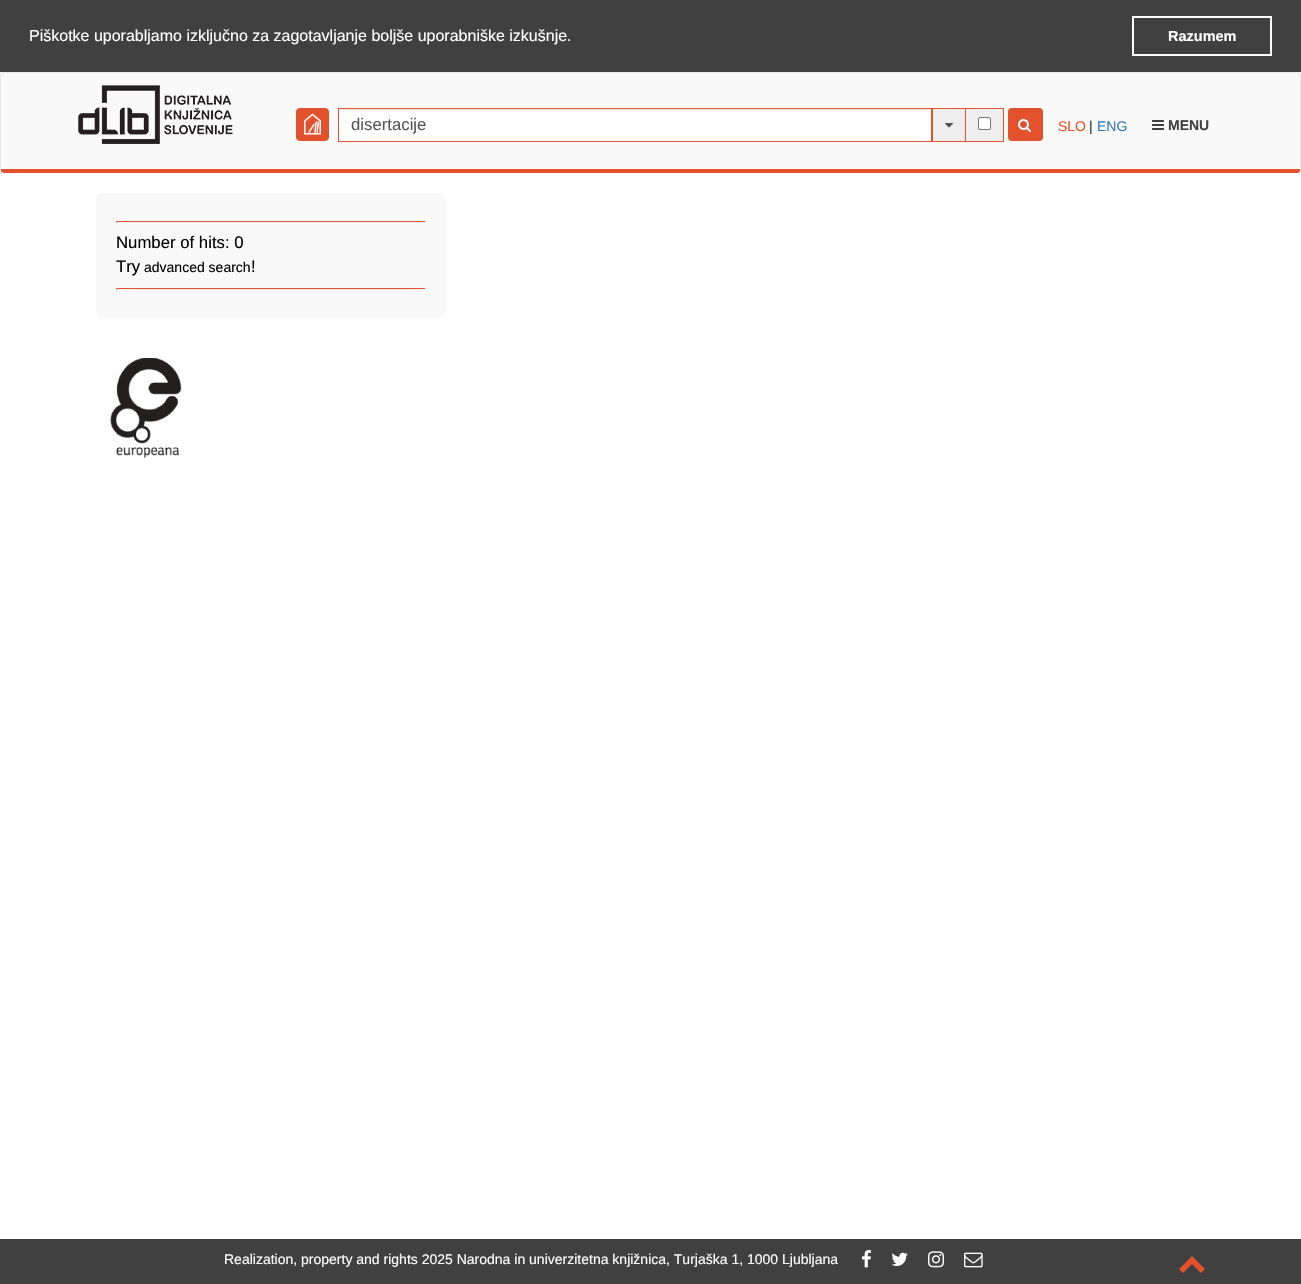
#include "include/core/SkBlurTypes.h"
#include "include/core/SkCanvas.h"
#include "include/core/SkData.h"
#include "include/core/SkFont.h"
#include "include/core/SkFontMgr.h"
#include "include/core/SkImage.h"
#include "include/core/SkMaskFilter.h"
#include "include/core/SkPaint.h"
#include "include/core/SkPathBuilder.h"
#include "include/core/SkTextBlob.h"
#include "include/effects/SkDashPathEffect.h"
#include "include/effects/SkGradientShader.h"
#include "include/utils/SkParsePath.h"

extern sk_sp<SkFontMgr> fontMgr;

void draw(SkCanvas* canvas) {
  SkPaint p;
  p.setAntiAlias(true);
  canvas->clear(SK_ColorWHITE);
  p.setColor(SkColorSetRGB(64, 64, 64));
  canvas->drawRect(SkRect::MakeLTRB(0, 0, 1301, 72), p);
  p.setStyle(SkPaint::kStroke_Style);
  p.setStrokeWidth(2);
  p.setColor(SK_ColorWHITE);
  canvas->drawRect(SkRect::MakeLTRB(1133, 17, 1271, 55), p);
  p.setStyle(SkPaint::kFill_Style);
  p.setColor(SkColorSetRGB(249, 249, 249));
  canvas->drawPath(SkPathBuilder().moveTo(4, 73).lineTo(1297, 73).cubicTo(1299, 73, 1300, 74, 1300, 76).lineTo(1300, 169).lineTo(1, 169).lineTo(1, 76).cubicTo(1, 74, 2, 73, 4, 73).close().detach(), p);
  p.setColor(SkColorSetRGB(231, 231, 231));
  canvas->drawPath(SkPathBuilder().moveTo(4, 72).lineTo(1, 73).lineTo(2, 74).lineTo(4, 73).lineTo(1297, 73).lineTo(1299, 74).lineTo(1300, 73).lineTo(1297, 72).close().detach(), p);
  canvas->drawPath(SkPathBuilder().moveTo(1301, 169).lineTo(1301, 76).lineTo(1300, 73).lineTo(1299, 74).lineTo(1300, 76).lineTo(1300, 169).lineTo(1300, 171).close().detach(), p);
  p.setColor(SkColorSetRGB(227, 81, 45));
  canvas->drawPath(SkPathBuilder().moveTo(4, 173).lineTo(1297, 173).cubicTo(1298, 173, 1300, 172, 1300, 171).lineTo(1300, 169).lineTo(1, 169).lineTo(1, 171).cubicTo(1, 172, 3, 173, 4, 173).close().detach(), p);
  p.setColor(SkColorSetRGB(231, 231, 231));
  canvas->drawPath(SkPathBuilder().moveTo(0, 76).lineTo(0, 169).lineTo(1, 171).lineTo(1, 169).lineTo(1, 76).lineTo(2, 74).lineTo(1, 73).close().detach(), p);
  canvas->drawImageRect(SkImages::DeferredFromEncodedData(SkData::MakeFromFileName("images/1.png")), SkRect::MakeLTRB(78, 85, 233, 144), SkSamplingOptions());
  canvas->drawImageRect(SkImages::DeferredFromEncodedData(SkData::MakeFromFileName("images/2.png")), SkRect::MakeLTRB(296, 108, 329, 141), SkSamplingOptions());
  p.setColor(SK_ColorWHITE);
  canvas->drawRect(SkRect::MakeLTRB(339, 110, 931, 141), p);
  p.setColor(SkColorSetRGB(236, 236, 236));
  canvas->drawRect(SkRect::MakeLTRB(339, 109, 931, 110), p);
  p.setStyle(SkPaint::kStroke_Style);
  p.setStrokeWidth(1);
  p.setColor(SkColorSetRGB(227, 81, 45));
  canvas->drawRect(SkRect::MakeLTRB(338.5f, 108.5f, 931.5f, 141.5f), p);
  p.setStyle(SkPaint::kFill_Style);
  p.setColor(SkColorSetRGB(238, 238, 238));
  canvas->drawRect(SkRect::MakeLTRB(932.5f, 108.5f, 965.5f, 141.5f), p);
  p.setStyle(SkPaint::kStroke_Style);
  p.setColor(SkColorSetRGB(227, 81, 45));
  canvas->drawRect(SkRect::MakeLTRB(932.5f, 108.5f, 965.5f, 141.5f), p);
  canvas->drawImageRect(SkImages::DeferredFromEncodedData(SkData::MakeFromFileName("images/3.png")), SkRect::MakeLTRB(945, 123, 953, 128), SkSamplingOptions());
  p.setStyle(SkPaint::kFill_Style);
  p.setColor(SkColorSetRGB(238, 238, 238));
  canvas->drawRect(SkRect::MakeLTRB(966, 109, 1003, 141), p);
  p.setColor(SkColorSetRGB(227, 81, 45));
  canvas->drawRect(SkRect::MakeLTRB(966, 108, 1004, 109), p);
  canvas->drawRect(SkRect::MakeLTRB(1003, 108, 1004, 142), p);
  canvas->drawRect(SkRect::MakeLTRB(966, 141, 1004, 142), p);
  p.setColor(SK_ColorWHITE);
  canvas->drawRoundRect(SkRect::MakeLTRB(978.5f, 117.5f, 990.5f, 129.5f), 1.5f, 1.5f, p);
  p.setStyle(SkPaint::kStroke_Style);
  p.setColor(SkColorSetRGB(118, 118, 118));
  canvas->drawRoundRect(SkRect::MakeLTRB(978.5f, 117.5f, 990.5f, 129.5f), 1.5f, 1.5f, p);
  p.setStyle(SkPaint::kFill_Style);
  p.setColor(SkColorSetRGB(227, 81, 45));
  canvas->drawRoundRect(SkRect::MakeLTRB(1008, 108, 1043, 141), 4, 4, p);
  canvas->drawImageRect(SkImages::DeferredFromEncodedData(SkData::MakeFromFileName("images/4.png")), SkRect::MakeLTRB(1018, 119, 1031, 132), SkSamplingOptions());
  canvas->drawImageRect(SkImages::DeferredFromEncodedData(SkData::MakeFromFileName("images/5.png")), SkRect::MakeLTRB(1152, 120, 1164, 130), SkSamplingOptions());
  p.setColor(SkColorSetRGB(249, 249, 249));
  canvas->drawRoundRect(SkRect::MakeLTRB(96, 193, 446, 318), 8, 8, p);
  p.setColor(SkColorSetRGB(227, 81, 45));
  canvas->drawRect(SkRect::MakeLTRB(116, 221, 426, 222), p);
  p.setColor(SkColorSetRGB(238, 238, 238));
  canvas->drawRect(SkRect::MakeLTRB(425, 221, 426, 223), p);
  canvas->drawRect(SkRect::MakeLTRB(116, 222, 426, 223), p);
  p.setColor(SkColorSetRGB(159, 159, 159));
  canvas->drawRect(SkRect::MakeLTRB(116, 221, 117, 223), p);
  p.setColor(SkColorSetRGB(227, 81, 45));
  canvas->drawRect(SkRect::MakeLTRB(116, 288, 426, 289), p);
  p.setColor(SkColorSetRGB(238, 238, 238));
  canvas->drawRect(SkRect::MakeLTRB(425, 288, 426, 290), p);
  canvas->drawRect(SkRect::MakeLTRB(116, 289, 426, 290), p);
  p.setColor(SkColorSetRGB(159, 159, 159));
  canvas->drawRect(SkRect::MakeLTRB(116, 288, 117, 290), p);
  canvas->drawImageRect(SkImages::DeferredFromEncodedData(SkData::MakeFromFileName("images/6.png")), SkRect::MakeLTRB(110, 358, 182, 458), SkSamplingOptions());
  p.setColor(SkColorSetRGB(64, 64, 64));
  canvas->drawRect(SkRect::MakeLTRB(0, 1239, 1301, 1284), p);
  canvas->drawImageRect(SkImages::DeferredFromEncodedData(SkData::MakeFromFileName("images/7.png")), SkRect::MakeLTRB(862, 1250, 871, 1268), SkSamplingOptions());
  canvas->drawImageRect(SkImages::DeferredFromEncodedData(SkData::MakeFromFileName("images/8.png")), SkRect::MakeLTRB(891, 1252, 908, 1266), SkSamplingOptions());
  canvas->drawImageRect(SkImages::DeferredFromEncodedData(SkData::MakeFromFileName("images/9.png")), SkRect::MakeLTRB(928, 1251, 944, 1268), SkSamplingOptions());
  canvas->drawImageRect(SkImages::DeferredFromEncodedData(SkData::MakeFromFileName("images/10.png")), SkRect::MakeLTRB(964, 1252, 983, 1268), SkSamplingOptions());
  canvas->drawImageRect(SkImages::DeferredFromEncodedData(SkData::MakeFromFileName("images/11.png")), SkRect::MakeLTRB(1179, 1256, 1205, 1273), SkSamplingOptions());
  SkFont font1(fontMgr->matchFamilyStyle("Liberation Sans", SkFontStyle::Normal()), 16);
  font1.setSubpixel(true);
  p.setColor(SK_ColorWHITE);
  canvas->drawString("Piškotke uporabljamo izključno za zagotavljanje boljše uporabniške izkušnje.", 29, 41, font1, p);
  SkFont font2(fontMgr->matchFamilyStyle("Liberation Sans", SkFontStyle::Bold()), 14.5f);
  font2.setSubpixel(true);
  canvas->drawString("Razumem", 1168, 41, font2, p);
  SkFont font3(fontMgr->matchFamilyStyle("Liberation Sans", SkFontStyle::Normal()), 16.75f);
  font3.setSubpixel(true);
  p.setColor(SkColorSetRGB(85, 85, 85));
  canvas->drawString("disertacije", 351, 130, font3, p);
  SkFont font4(fontMgr->matchFamilyStyle("Liberation Sans", SkFontStyle::Normal()), 14);
  font4.setSubpixel(true);
  p.setColor(SkColorSetRGB(227, 81, 45));
  canvas->drawString("SLO", 1058, 131, font4, p);
  p.setColor(SkColorSetRGB(51, 51, 51));
  canvas->drawString("|", 1089, 131, font4, p);
  p.setColor(SkColorSetRGB(51, 122, 183));
  canvas->drawString("ENG", 1097, 131, font4, p);
  SkFont font5(fontMgr->matchFamilyStyle("Liberation Sans", SkFontStyle::Bold()), 14);
  font5.setSubpixel(true);
  p.setColor(SkColorSetRGB(64, 64, 64));
  canvas->drawString("MENU", 1168, 130, font5, p);
  p.setColor(SK_ColorBLACK);
  canvas->drawString("Number of hits: 0", 116, 248, font3, p);
  canvas->drawString("Try", 116, 272, font3, p);
  canvas->drawString("advanced search", 144, 272, font4, p);
  canvas->drawString("!", 251, 272, font3, p);
  p.setColor(SK_ColorWHITE);
  canvas->drawString("Realization, property and rights 2025 Narodna in univerzitetna knjižnica, Turjaška 1, 1000 Ljubljana", 224, 1264, font4, p);
}
